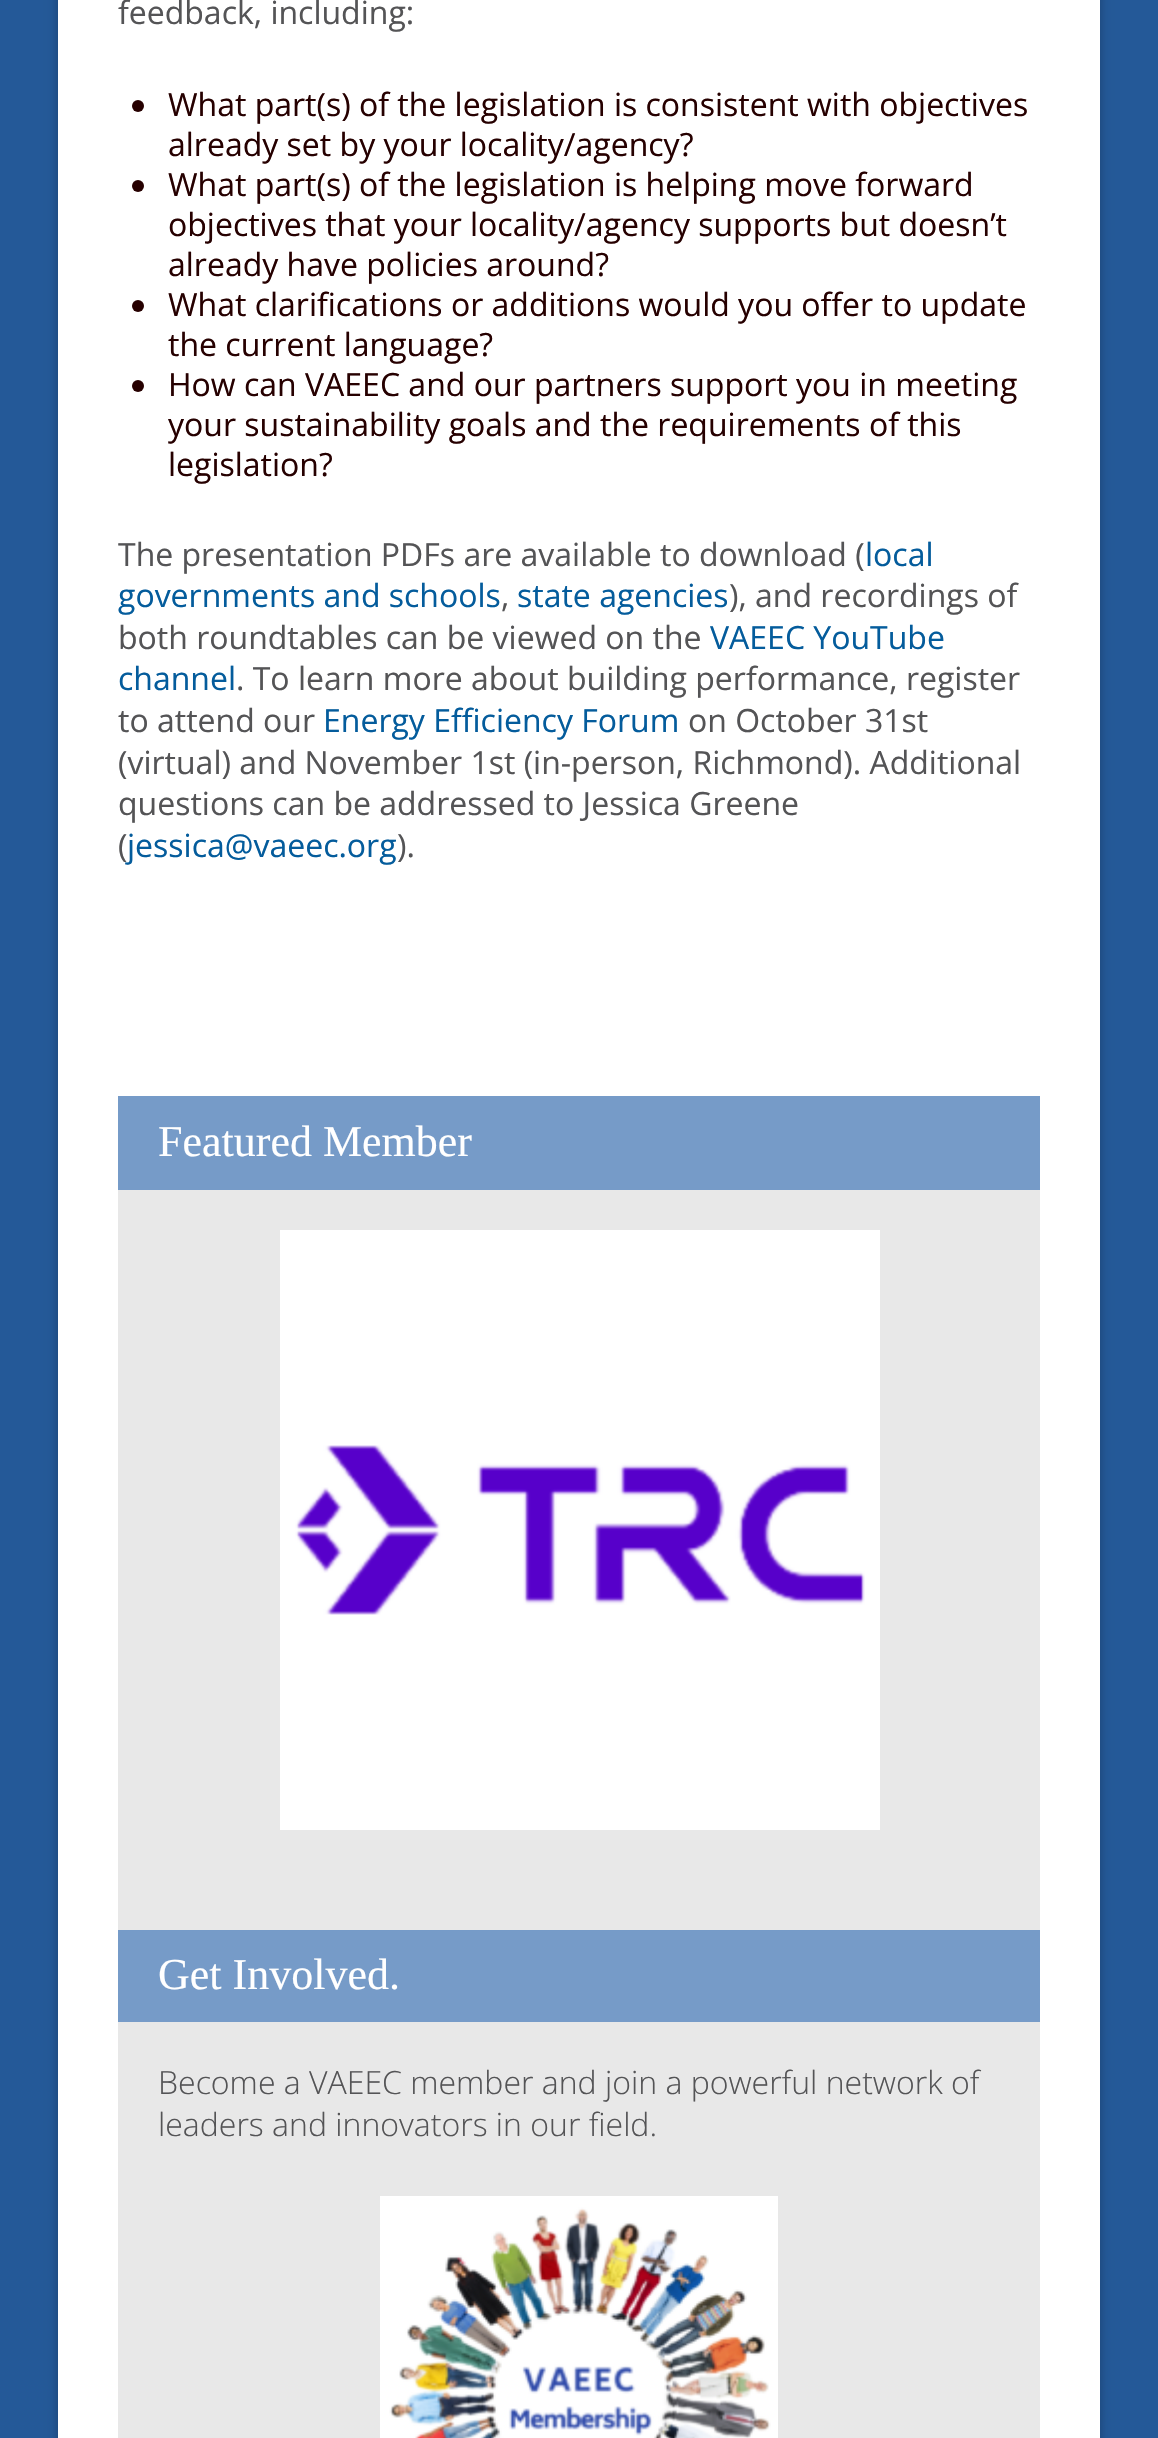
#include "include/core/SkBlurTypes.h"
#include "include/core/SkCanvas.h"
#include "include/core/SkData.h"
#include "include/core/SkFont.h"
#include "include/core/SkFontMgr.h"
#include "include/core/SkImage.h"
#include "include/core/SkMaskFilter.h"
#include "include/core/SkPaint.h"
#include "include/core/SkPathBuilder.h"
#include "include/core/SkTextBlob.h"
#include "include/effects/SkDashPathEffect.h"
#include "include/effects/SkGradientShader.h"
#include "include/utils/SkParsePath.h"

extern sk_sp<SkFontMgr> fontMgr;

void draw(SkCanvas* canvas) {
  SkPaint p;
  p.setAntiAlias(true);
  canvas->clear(SkColorSetRGB(36, 89, 152));
  p.setColor(SkColorSetARGB(66, 0, 0, 0));
  p.setMaskFilter(SkMaskFilter::MakeBlur(kNormal_SkBlurStyle, 5));
  canvas->drawRect(SkRect::MakeLTRB(58, -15, 1100, 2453), p);
  p.setMaskFilter(nullptr);
  p.setColor(SK_ColorWHITE);
  canvas->drawRect(SkRect::MakeLTRB(58, 0, 1100, 2438), p);
  p.setColor(SkColorSetRGB(38, 0, 0));
  canvas->drawCircle(138, 106, 6, p);
  canvas->drawCircle(138, 186, 6, p);
  canvas->drawCircle(138, 306, 6, p);
  canvas->drawCircle(138, 386, 6, p);
  p.setColor(SkColorSetRGB(232, 232, 232));
  canvas->drawRect(SkRect::MakeLTRB(118, 1190, 1040, 1930), p);
  p.setColor(SkColorSetRGB(118, 155, 200));
  canvas->drawRect(SkRect::MakeLTRB(118, 1096, 1040, 1190), p);
  canvas->drawImageRect(SkImages::DeferredFromEncodedData(SkData::MakeFromFileName("images/1.png")), SkRect::MakeLTRB(280, 1230, 880, 1830), SkSamplingOptions());
  p.setColor(SkColorSetRGB(232, 232, 232));
  canvas->drawRect(SkRect::MakeLTRB(118, 2022, 1040, 2438), p);
  p.setColor(SkColorSetRGB(118, 155, 200));
  canvas->drawRect(SkRect::MakeLTRB(118, 1930, 1040, 2022), p);
  canvas->drawImageRect(SkImages::DeferredFromEncodedData(SkData::MakeFromFileName("images/2.png")), SkRect::MakeLTRB(380, 2196, 778, 2438), SkSamplingOptions());
  SkFont font1(fontMgr->matchFamilyStyle("Open Sans", SkFontStyle::Normal()), 32);
  font1.setSubpixel(true);
  p.setColor(SkColorSetRGB(84, 84, 86));
  canvas->drawString("feedback, including:", 118, 24, font1, p);
  p.setColor(SkColorSetRGB(38, 0, 0));
  canvas->drawString("What part(s) of the legislation is consistent with objectives", 168, 116, font1, p);
  canvas->drawString("already set by your locality/agency?", 168, 156, font1, p);
  canvas->drawString("What part(s) of the legislation is helping move forward", 168, 196, font1, p);
  canvas->drawString("objectives that your locality/agency supports but doesn’t", 168, 236, font1, p);
  canvas->drawString("already have policies around?", 168, 276, font1, p);
  canvas->drawString("What clarifications or additions would you offer to update", 168, 316, font1, p);
  canvas->drawString("the current language?", 168, 356, font1, p);
  canvas->drawString("How can VAEEC and our partners support you in meeting", 168, 396, font1, p);
  canvas->drawString("your sustainability goals and the requirements of this", 168, 436, font1, p);
  canvas->drawString("legislation?", 168, 476, font1, p);
  p.setColor(SkColorSetRGB(84, 84, 86));
  canvas->drawString("The presentation PDFs are available to download (", 118, 566, font1, p);
  p.setColor(SkColorSetRGB(4, 92, 156));
  canvas->drawString("local", 865, 566, font1, p);
  canvas->drawString("governments and schools", 118, 607, font1, p);
  p.setColor(SkColorSetRGB(84, 84, 86));
  canvas->drawString(",", 501, 607, font1, p);
  p.setColor(SkColorSetRGB(4, 92, 156));
  canvas->drawString("state agencies", 517, 607, font1, p);
  p.setColor(SkColorSetRGB(84, 84, 86));
  canvas->drawString("), and recordings of", 729, 607, font1, p);
  canvas->drawString("both roundtables can be viewed on the", 118, 649, font1, p);
  p.setColor(SkColorSetRGB(4, 92, 156));
  canvas->drawString("VAEEC YouTube", 710, 649, font1, p);
  canvas->drawString("channel", 118, 690, font1, p);
  p.setColor(SkColorSetRGB(84, 84, 86));
  canvas->drawString(". To learn more about building performance, register", 236, 690, font1, p);
  canvas->drawString("to attend our", 118, 732, font1, p);
  p.setColor(SkColorSetRGB(4, 92, 156));
  canvas->drawString("Energy Efficiency Forum", 323, 732, font1, p);
  p.setColor(SkColorSetRGB(84, 84, 86));
  canvas->drawString("on October 31st", 688, 732, font1, p);
  canvas->drawString("(virtual) and November 1st (in-person, Richmond). Additional", 118, 774, font1, p);
  canvas->drawString("questions can be addressed to Jessica Greene", 118, 815, font1, p);
  canvas->drawString("(", 118, 857, font1, p);
  p.setColor(SkColorSetRGB(4, 92, 156));
  canvas->drawString("jessica@vaeec.org", 127, 857, font1, p);
  p.setColor(SkColorSetRGB(84, 84, 86));
  canvas->drawString(").", 397, 857, font1, p);
  SkFont font2(fontMgr->matchFamilyStyle("Liberation Serif", SkFontStyle::Normal()), 44);
  font2.setSubpixel(true);
  p.setColor(SK_ColorWHITE);
  canvas->drawString("Featured Member", 158, 1156, font2, p);
  canvas->drawString("Get Involved.", 158, 1989, font2, p);
  SkFont font3(fontMgr->matchFamilyStyle("Open Sans", SkFontStyle(300, SkFontStyle::kNormal_Width, SkFontStyle::kUpright_Slant)), 32);
  font3.setSubpixel(true);
  p.setColor(SkColorSetRGB(84, 84, 86));
  canvas->drawString("Become a VAEEC member and join a powerful network of", 158, 2094, font3, p);
  canvas->drawString("leaders and innovators in our field.", 158, 2136, font3, p);
}
